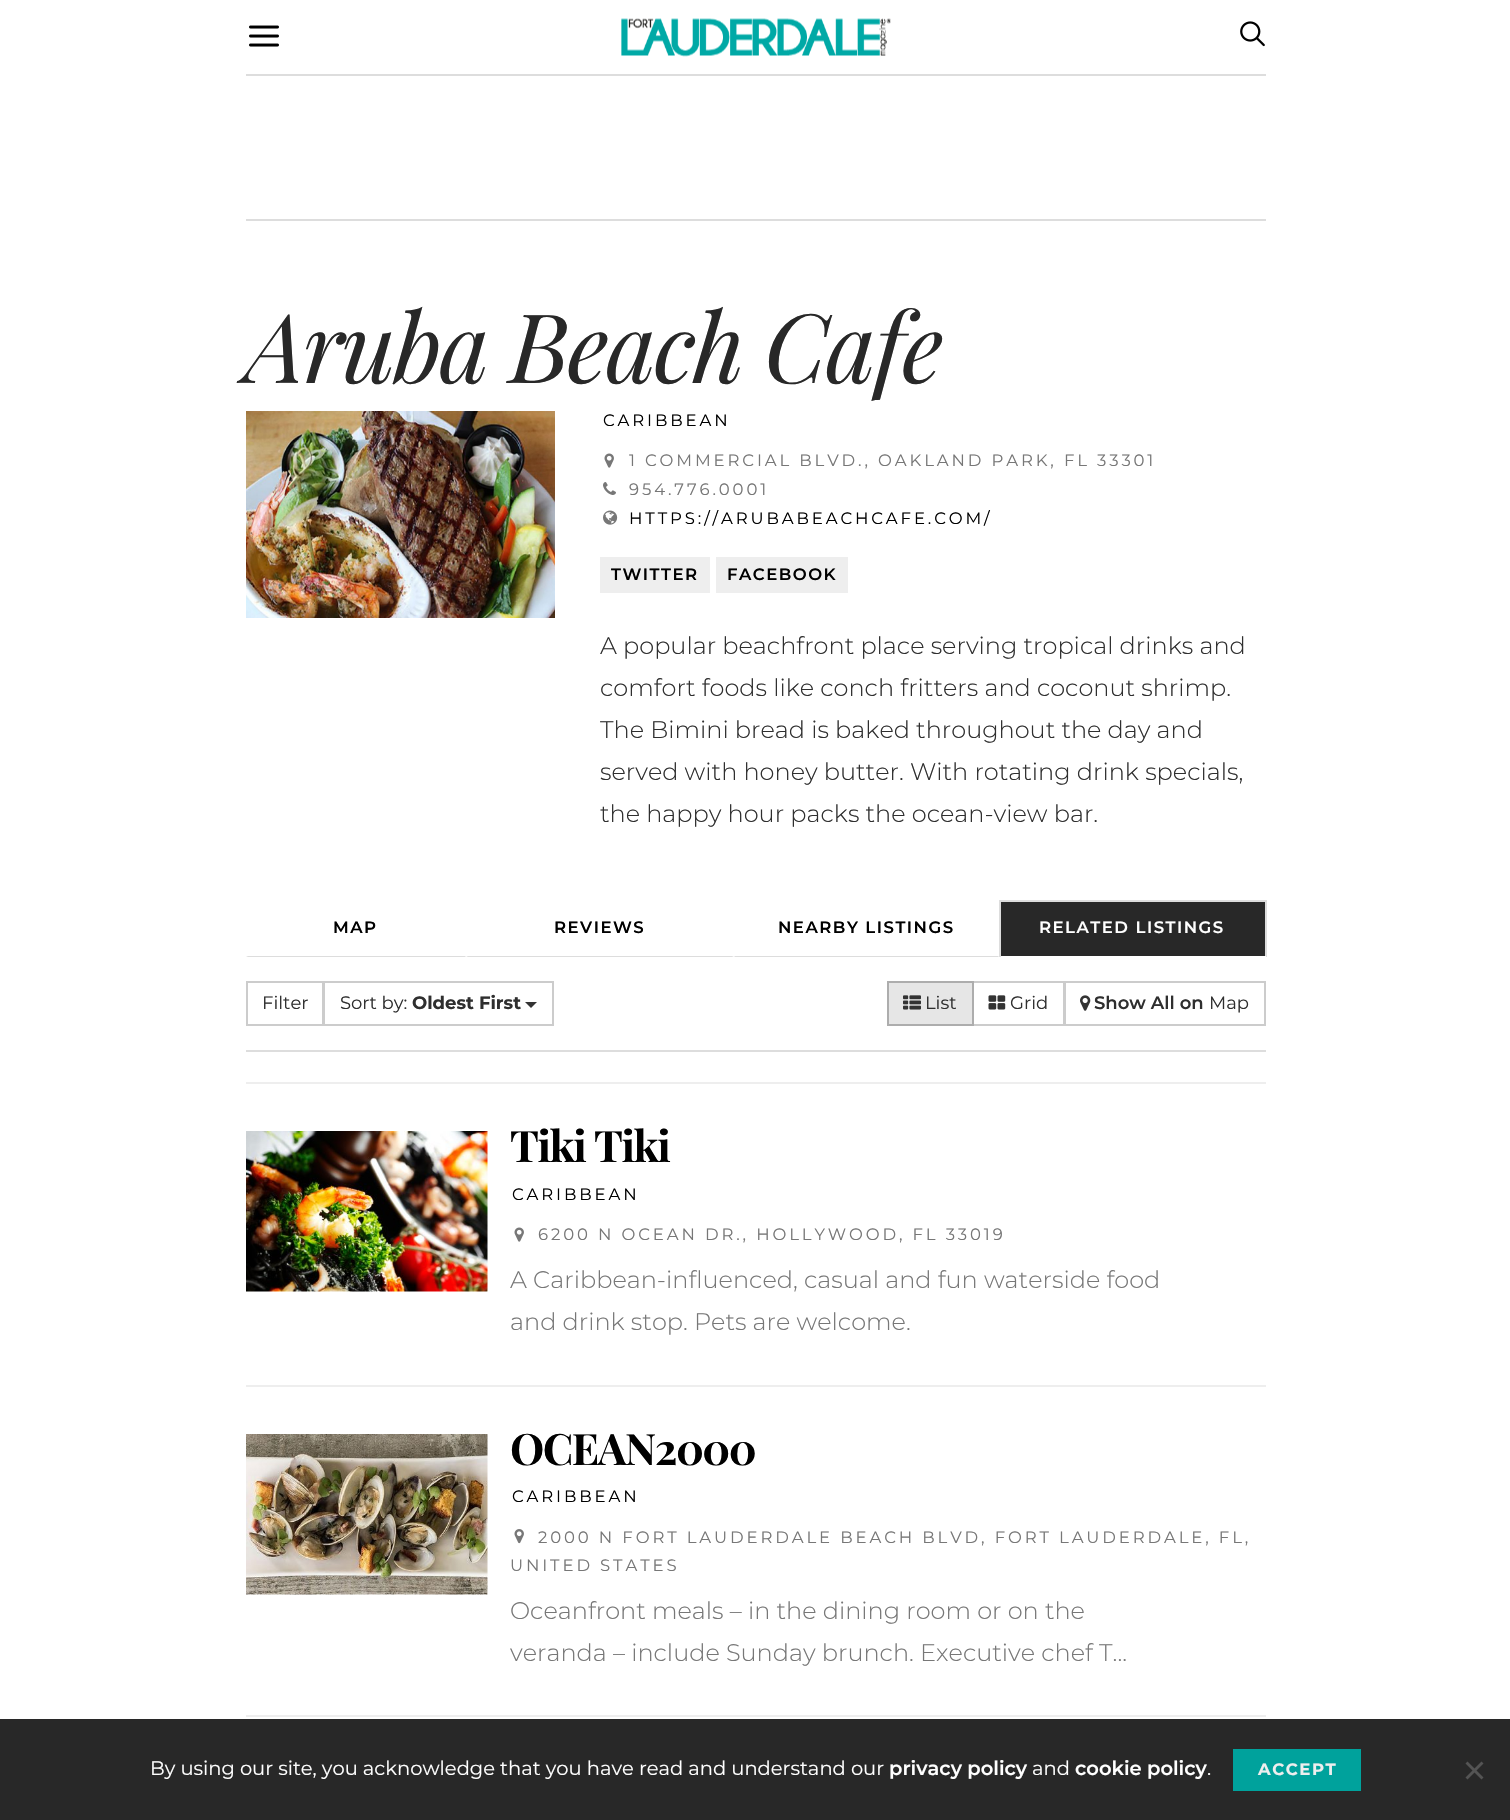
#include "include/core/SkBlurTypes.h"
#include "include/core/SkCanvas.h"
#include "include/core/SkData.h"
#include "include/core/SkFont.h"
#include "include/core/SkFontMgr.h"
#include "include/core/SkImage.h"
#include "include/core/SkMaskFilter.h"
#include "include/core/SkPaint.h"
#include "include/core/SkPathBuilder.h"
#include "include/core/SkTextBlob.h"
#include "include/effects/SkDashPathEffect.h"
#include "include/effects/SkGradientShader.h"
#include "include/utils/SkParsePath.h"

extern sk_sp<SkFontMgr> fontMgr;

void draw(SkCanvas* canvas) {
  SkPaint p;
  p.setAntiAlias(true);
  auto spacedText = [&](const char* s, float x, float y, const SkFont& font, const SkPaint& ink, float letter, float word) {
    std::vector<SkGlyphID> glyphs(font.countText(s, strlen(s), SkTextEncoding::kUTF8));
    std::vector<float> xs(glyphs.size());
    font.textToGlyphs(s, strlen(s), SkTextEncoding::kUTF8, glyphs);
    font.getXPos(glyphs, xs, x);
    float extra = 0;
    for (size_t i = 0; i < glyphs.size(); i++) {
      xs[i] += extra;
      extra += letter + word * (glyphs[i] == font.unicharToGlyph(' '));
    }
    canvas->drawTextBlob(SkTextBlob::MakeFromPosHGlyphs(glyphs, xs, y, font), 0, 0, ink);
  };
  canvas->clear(SK_ColorWHITE);
  p.setColor(SkColorSetRGB(221, 221, 221));
  canvas->drawRect(SkRect::MakeLTRB(246, 74, 1266, 76), p);
  canvas->drawImageRect(SkImages::DeferredFromEncodedData(SkData::MakeFromFileName("images/1.png")), SkRect::MakeLTRB(249, 25, 279, 47), SkSamplingOptions());
  canvas->drawImageRect(SkImages::DeferredFromEncodedData(SkData::MakeFromFileName("images/2.png")), SkRect::MakeLTRB(621, 18, 891, 57), SkSamplingOptions());
  canvas->drawImageRect(SkImages::DeferredFromEncodedData(SkData::MakeFromFileName("images/3.png")), SkRect::MakeLTRB(1240, 21, 1265, 47), SkSamplingOptions());
  canvas->drawRect(SkRect::MakeLTRB(246, 219, 1266, 221), p);
  canvas->drawImageRect(SkImages::DeferredFromEncodedData(SkData::MakeFromFileName("images/4.png")), SkRect::MakeLTRB(246, 411, 555, 618), SkSamplingOptions());
  canvas->drawImageRect(SkImages::DeferredFromEncodedData(SkData::MakeFromFileName("images/5.png")), SkRect::MakeLTRB(604, 453, 614, 468), SkSamplingOptions());
  canvas->drawImageRect(SkImages::DeferredFromEncodedData(SkData::MakeFromFileName("images/6.png")), SkRect::MakeLTRB(603, 482, 616, 495), SkSamplingOptions());
  canvas->drawImageRect(SkImages::DeferredFromEncodedData(SkData::MakeFromFileName("images/7.png")), SkRect::MakeLTRB(603, 510, 618, 525), SkSamplingOptions());
  p.setColor(SkColorSetRGB(238, 238, 238));
  canvas->drawRect(SkRect::MakeLTRB(600, 557, 710, 593), p);
  canvas->drawRect(SkRect::MakeLTRB(716, 557, 848, 593), p);
  p.setColor(SkColorSetRGB(221, 221, 221));
  canvas->drawPath(SkPathBuilder().moveTo(466, 957).lineTo(246, 957).lineTo(248, 956).lineTo(465, 956).close().detach(), p);
  canvas->drawPath(SkPathBuilder().moveTo(734, 957).lineTo(466, 957).lineTo(468, 956).lineTo(732, 956).close().detach(), p);
  canvas->drawPath(SkPathBuilder().moveTo(999, 957).lineTo(734, 957).lineTo(735, 956).lineTo(998, 956).close().detach(), p);
  p.setColor(SkColorSetRGB(40, 40, 40));
  canvas->drawRect(SkRect::MakeLTRB(1001, 902, 1265, 956), p);
  p.setColor(SkColorSetRGB(221, 221, 221));
  canvas->drawRect(SkRect::MakeLTRB(999, 900, 1266, 902), p);
  canvas->drawRect(SkRect::MakeLTRB(1265, 900, 1267, 957), p);
  p.setColor(SK_ColorWHITE);
  canvas->drawRect(SkRect::MakeLTRB(1265, 956, 1266, 957), p);
  p.setColor(SkColorSetRGB(221, 221, 221));
  canvas->drawRect(SkRect::MakeLTRB(999, 900, 1001, 957), p);
  canvas->drawRect(SkRect::MakeLTRB(246, 1050, 1266, 1052), p);
  p.setStyle(SkPaint::kStroke_Style);
  p.setStrokeWidth(2);
  p.setColor(SkColorSetRGB(204, 204, 204));
  canvas->drawRect(SkRect::MakeLTRB(247, 982, 323, 1025), p);
  canvas->drawRect(SkRect::MakeLTRB(324, 982, 553, 1025), p);
  p.setStyle(SkPaint::kFill_Style);
  p.setColor(SkColorSetRGB(51, 51, 51));
  canvas->drawPath(SkPathBuilder().moveTo(525, 1002).lineTo(537, 1002).lineTo(531, 1008).close().detach(), p);
  p.setStyle(SkPaint::kStroke_Style);
  p.setColor(SkColorSetRGB(204, 204, 204));
  canvas->drawRect(SkRect::MakeLTRB(973, 982, 1064, 1025), p);
  p.setStyle(SkPaint::kFill_Style);
  p.setColor(SkColorSetRGB(230, 230, 230));
  canvas->drawRect(SkRect::MakeLTRB(888, 982, 973, 1025), p);
  p.setStyle(SkPaint::kStroke_Style);
  p.setColor(SkColorSetRGB(173, 173, 173));
  canvas->drawRect(SkRect::MakeLTRB(888, 982, 973, 1025), p);
  canvas->drawImageRect(SkImages::DeferredFromEncodedData(SkData::MakeFromFileName("images/8.png")), SkRect::MakeLTRB(903, 995, 921, 1010), SkSamplingOptions());
  canvas->drawImageRect(SkImages::DeferredFromEncodedData(SkData::MakeFromFileName("images/9.png")), SkRect::MakeLTRB(988, 995, 1006, 1010), SkSamplingOptions());
  p.setColor(SkColorSetRGB(204, 204, 204));
  canvas->drawRect(SkRect::MakeLTRB(1065, 982, 1265, 1025), p);
  canvas->drawImageRect(SkImages::DeferredFromEncodedData(SkData::MakeFromFileName("images/10.png")), SkRect::MakeLTRB(1080, 995, 1091, 1011), SkSamplingOptions());
  p.setStyle(SkPaint::kFill_Style);
  p.setColor(SkColorSetRGB(238, 238, 238));
  canvas->drawRect(SkRect::MakeLTRB(246, 1082, 1266, 1084), p);
  canvas->drawRect(SkRect::MakeLTRB(246, 1385, 1266, 1387), p);
  canvas->drawImageRect(SkImages::DeferredFromEncodedData(SkData::MakeFromFileName("images/11.png")), SkRect::MakeLTRB(246, 1131, 488, 1292), SkSamplingOptions());
  canvas->drawImageRect(SkImages::DeferredFromEncodedData(SkData::MakeFromFileName("images/5.png")), SkRect::MakeLTRB(514, 1227, 524, 1242), SkSamplingOptions());
  canvas->drawRect(SkRect::MakeLTRB(246, 1715, 1266, 1717), p);
  canvas->drawImageRect(SkImages::DeferredFromEncodedData(SkData::MakeFromFileName("images/12.png")), SkRect::MakeLTRB(246, 1434, 488, 1595), SkSamplingOptions());
  canvas->drawImageRect(SkImages::DeferredFromEncodedData(SkData::MakeFromFileName("images/13.png")), SkRect::MakeLTRB(514, 1529, 524, 1544), SkSamplingOptions());
  p.setColor(SkColorSetRGB(40, 40, 40));
  canvas->drawRect(SkRect::MakeLTRB(0, 1719, 1510, 1820), p);
  p.setColor(SkColorSetRGB(0, 162, 156));
  canvas->drawRect(SkRect::MakeLTRB(1233, 1749, 1361, 1791), p);
  p.setColor(SkColorSetRGB(84, 84, 84));
  canvas->drawPath(SkPathBuilder().moveTo(1481.5f, 1761.5f).lineTo(1483.5f, 1763.5f).lineTo(1467.5f, 1779.5f).lineTo(1465.5f, 1777.5f).close().detach(), p);
  canvas->drawPath(SkPathBuilder().moveTo(1465.5f, 1763.5f).lineTo(1467.5f, 1761.5f).lineTo(1483.5f, 1777.5f).lineTo(1481.5f, 1779.5f).close().detach(), p);
  SkFont font1(fontMgr->matchFamilyStyle("Playfair Display", SkFontStyle::Italic()), 96);
  font1.setSubpixel(true);
  p.setColor(SkColorSetRGB(40, 40, 40));
  spacedText("Aruba Beach Cafe", 245, 383, font1, p, -2.4f, 0);
  SkFont font2(fontMgr->matchFamilyStyle("Montserrat", SkFontStyle::Normal()), 16.5f);
  font2.setSubpixel(true);
  p.setColor(SK_ColorBLACK);
  spacedText("CARIBBEAN", 603, 426, font2, p, 2.88f, 0);
  p.setColor(SkColorSetRGB(119, 119, 119));
  spacedText("1 COMMERCIAL BLVD., OAKLAND PARK, FL 33301", 629, 466, font2, p, 2.88f, 0);
  spacedText("954.776.0001", 629, 495, font2, p, 2.88f, 0);
  p.setColor(SK_ColorBLACK);
  spacedText("HTTPS://ARUBABEACHCAFE.COM/", 629, 524, font2, p, 2.88f, 0);
  SkFont font3(fontMgr->matchFamilyStyle("Montserrat", SkFontStyle(600, SkFontStyle::kNormal_Width, SkFontStyle::kUpright_Slant)), 16.5f);
  font3.setSubpixel(true);
  spacedText("TWITTER", 611, 580, font3, p, 1.5f, 0);
  spacedText("FACEBOOK", 727, 580, font3, p, 1.5f, 0);
  SkFont font4(fontMgr->matchFamilyStyle("Montserrat", SkFontStyle(300, SkFontStyle::kNormal_Width, SkFontStyle::kUpright_Slant)), 24);
  font4.setSubpixel(true);
  p.setColor(SkColorSetRGB(47, 47, 47));
  canvas->drawString("A popular beachfront place serving tropical drinks and", 600, 654, font4, p);
  canvas->drawString("comfort foods like conch fritters and coconut shrimp.", 600, 696, font4, p);
  canvas->drawString("The Bimini bread is baked throughout the day and", 600, 738, font4, p);
  canvas->drawString("served with honey butter. With rotating drink specials,", 600, 780, font4, p);
  canvas->drawString("the happy hour packs the ocean-view bar.", 600, 822, font4, p);
  p.setColor(SK_ColorBLACK);
  spacedText("MAP", 333, 933, font3, p, 1.5f, 0);
  spacedText("REVIEWS", 554, 933, font3, p, 1.5f, 0);
  spacedText("NEARBY LISTINGS", 778, 933, font3, p, 1.5f, 0);
  p.setColor(SK_ColorWHITE);
  spacedText("RELATED LISTINGS", 1039, 933, font3, p, 1.5f, 0);
  SkFont font5(fontMgr->matchFamilyStyle("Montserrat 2", SkFontStyle::Normal()), 18);
  font5.setSubpixel(true);
  p.setColor(SkColorSetRGB(47, 47, 47));
  canvas->drawString("Filter", 262, 1009, font5, p);
  canvas->drawString("Sort by:", 340, 1009, font5, p);
  SkFont font6(fontMgr->matchFamilyStyle("Montserrat", SkFontStyle::Bold()), 18);
  font6.setSubpixel(true);
  canvas->drawString("Oldest First", 412, 1009, font6, p);
  canvas->drawString("List", 925, 1009, font5, p);
  canvas->drawString("Grid", 1010, 1009, font5, p);
  SkFont font7(fontMgr->matchFamilyStyle("Montserrat", SkFontStyle(600, SkFontStyle::kNormal_Width, SkFontStyle::kUpright_Slant)), 18);
  font7.setSubpixel(true);
  canvas->drawString("Show All on", 1094, 1009, font7, p);
  canvas->drawString("Map", 1209, 1009, font5, p);
  SkFont font8(fontMgr->matchFamilyStyle("Playfair Display", SkFontStyle::Bold()), 43.25f);
  font8.setSubpixel(true);
  p.setColor(SK_ColorBLACK);
  spacedText("Tiki Tiki", 510, 1162, font8, p, -1.5f, 0);
  spacedText("CARIBBEAN", 512, 1200, font2, p, 2.88f, 0);
  p.setColor(SkColorSetRGB(119, 119, 119));
  spacedText("6200 N OCEAN DR., HOLLYWOOD, FL 33019", 538, 1240, font2, p, 2.88f, 0);
  canvas->drawString("A Caribbean-influenced, casual and fun waterside food", 510, 1288, font4, p);
  canvas->drawString("and drink stop. Pets are welcome.", 510, 1330, font4, p);
  p.setColor(SK_ColorBLACK);
  spacedText("OCEAN2000", 510, 1465, font8, p, -1.5f, 0);
  spacedText("CARIBBEAN", 512, 1502, font2, p, 2.88f, 0);
  p.setColor(SkColorSetRGB(119, 119, 119));
  spacedText("2000 N FORT LAUDERDALE BEACH BLVD, FORT LAUDERDALE, FL,", 538, 1543, font2, p, 2.88f, 0);
  spacedText("UNITED STATES", 510, 1571, font2, p, 2.88f, 0);
  canvas->drawString("Oceanfront meals – in the dining room or on the", 510, 1619, font4, p);
  canvas->drawString("veranda – include Sunday brunch. Executive chef T...", 510, 1661, font4, p);
  SkFont font9(fontMgr->matchFamilyStyle("Montserrat 2", SkFontStyle::Normal()), 19.5f);
  font9.setSubpixel(true);
  p.setColor(SK_ColorWHITE);
  canvas->drawString("By using our site, you acknowledge that you have read and understand our", 150, 1775, font9, p);
  SkFont font10(fontMgr->matchFamilyStyle("Montserrat 2", SkFontStyle(600, SkFontStyle::kNormal_Width, SkFontStyle::kUpright_Slant)), 19.5f);
  font10.setSubpixel(true);
  canvas->drawString("privacy policy", 889, 1775, font10, p);
  canvas->drawString("and", 1032, 1775, font9, p);
  canvas->drawString("cookie policy", 1075, 1775, font10, p);
  canvas->drawString(".", 1207, 1775, font9, p);
  SkFont font11(fontMgr->matchFamilyStyle("Montserrat", SkFontStyle::Bold()), 16.5f);
  font11.setSubpixel(true);
  p.setColor(SkColorSetRGB(238, 238, 238));
  spacedText("ACCEPT", 1258, 1775, font11, p, 1.5f, 0);
}
